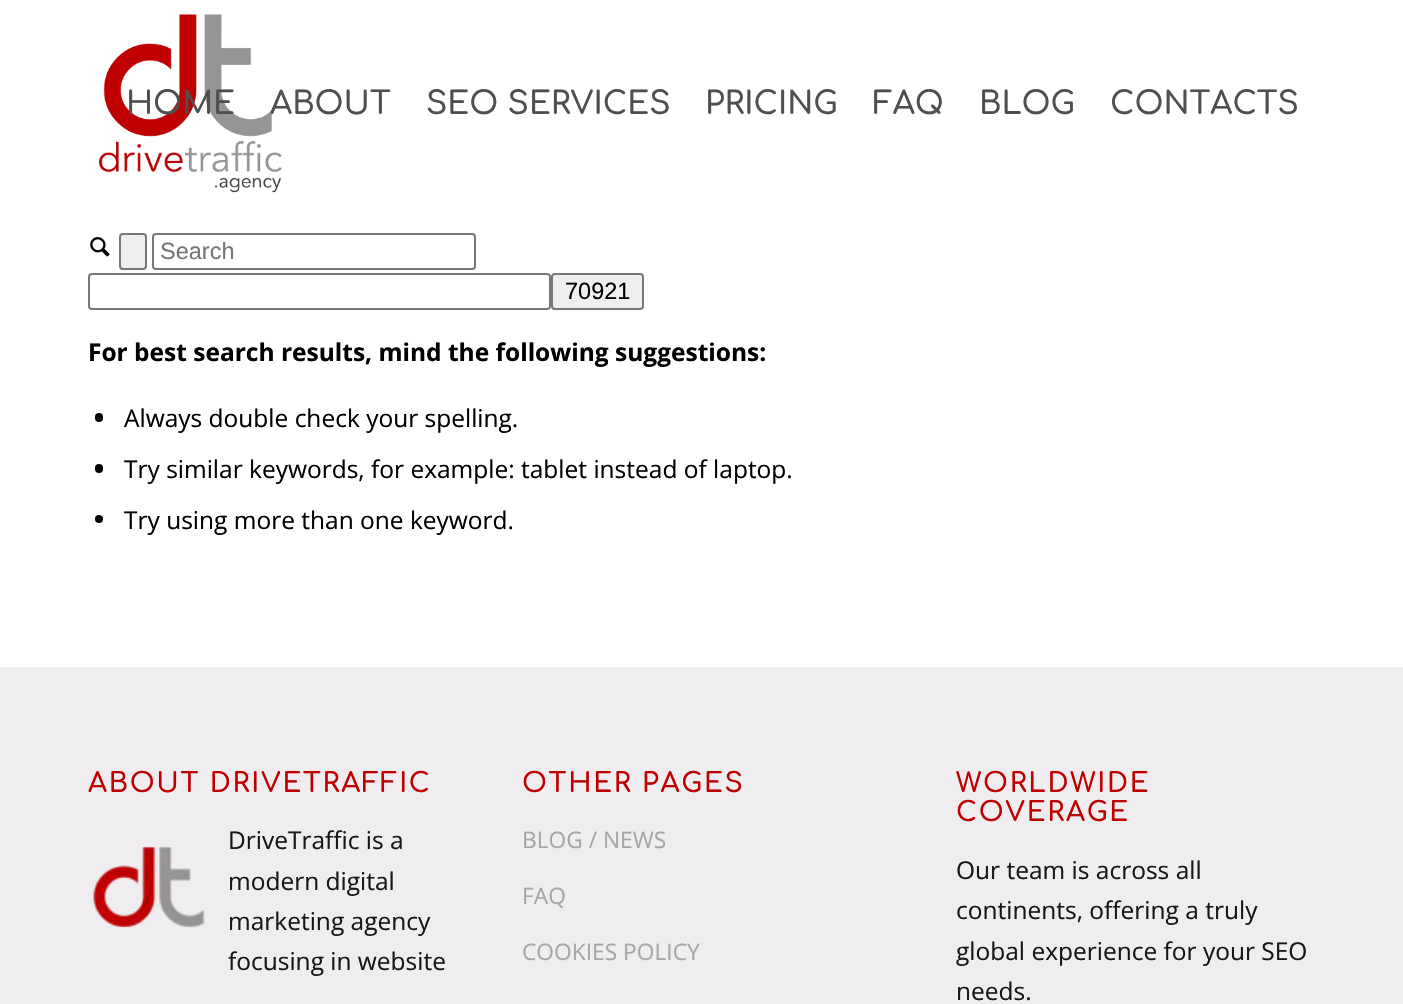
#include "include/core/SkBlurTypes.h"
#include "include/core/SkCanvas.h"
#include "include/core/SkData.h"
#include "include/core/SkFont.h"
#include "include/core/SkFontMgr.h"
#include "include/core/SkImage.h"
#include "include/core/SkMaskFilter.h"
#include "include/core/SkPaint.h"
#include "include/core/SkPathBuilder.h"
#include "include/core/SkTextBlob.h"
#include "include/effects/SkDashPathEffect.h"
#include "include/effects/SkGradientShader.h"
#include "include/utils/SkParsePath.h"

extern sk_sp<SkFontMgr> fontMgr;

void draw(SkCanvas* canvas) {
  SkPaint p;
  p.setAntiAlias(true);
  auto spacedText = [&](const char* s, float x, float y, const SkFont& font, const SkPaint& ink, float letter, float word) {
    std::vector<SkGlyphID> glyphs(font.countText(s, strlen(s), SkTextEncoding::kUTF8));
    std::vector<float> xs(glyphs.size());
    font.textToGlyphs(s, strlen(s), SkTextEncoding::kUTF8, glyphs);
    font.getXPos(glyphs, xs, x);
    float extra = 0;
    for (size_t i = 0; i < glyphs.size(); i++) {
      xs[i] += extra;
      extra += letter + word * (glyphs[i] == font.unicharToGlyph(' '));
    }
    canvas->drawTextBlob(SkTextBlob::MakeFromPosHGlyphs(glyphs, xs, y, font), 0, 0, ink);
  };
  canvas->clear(SK_ColorWHITE);
  canvas->drawImageRect(SkImages::DeferredFromEncodedData(SkData::MakeFromFileName("images/1.png")), SkRect::MakeLTRB(99, 14, 282, 193), SkSamplingOptions());
  canvas->drawImageRect(SkImages::DeferredFromEncodedData(SkData::MakeFromFileName("images/2.png")), SkRect::MakeLTRB(90, 237, 110, 257), SkSamplingOptions());
  p.setColor(SkColorSetRGB(239, 239, 239));
  canvas->drawRoundRect(SkRect::MakeLTRB(120, 234, 146, 269), 3, 3, p);
  p.setStyle(SkPaint::kStroke_Style);
  p.setStrokeWidth(2);
  p.setColor(SkColorSetRGB(118, 118, 118));
  canvas->drawRoundRect(SkRect::MakeLTRB(120, 234, 146, 269), 3, 3, p);
  canvas->drawRoundRect(SkRect::MakeLTRB(153, 234, 475, 269), 3, 3, p);
  canvas->drawRoundRect(SkRect::MakeLTRB(89, 274, 550, 309), 3, 3, p);
  p.setStyle(SkPaint::kFill_Style);
  p.setColor(SkColorSetRGB(239, 239, 239));
  canvas->drawRoundRect(SkRect::MakeLTRB(552, 274, 643, 309), 3, 3, p);
  p.setStyle(SkPaint::kStroke_Style);
  p.setColor(SkColorSetRGB(118, 118, 118));
  canvas->drawRoundRect(SkRect::MakeLTRB(552, 274, 643, 309), 3, 3, p);
  p.setStyle(SkPaint::kFill_Style);
  p.setColor(SK_ColorBLACK);
  canvas->drawRoundRect(SkRect::MakeLTRB(95, 413, 103, 422), 4, 4, p);
  canvas->drawRoundRect(SkRect::MakeLTRB(95, 464, 103, 473), 4, 4, p);
  canvas->drawCircle(99, 519, 4, p);
  p.setColor(SkColorSetRGB(240, 237, 240));
  canvas->drawRect(SkRect::MakeLTRB(0, 667, 1403, 1004), p);
  canvas->drawImageRect(SkImages::DeferredFromEncodedData(SkData::MakeFromFileName("images/3.png")), SkRect::MakeLTRB(93, 846, 205, 928), SkSamplingOptions());
  SkFont font1(fontMgr->matchFamilyStyle("Comfortaa", SkFontStyle(600, SkFontStyle::kNormal_Width, SkFontStyle::kUpright_Slant)), 31.5f);
  font1.setSubpixel(true);
  p.setColor(SkColorSetRGB(79, 79, 79));
  canvas->drawString("HOME", 126, 114, font1, p);
  canvas->drawString("ABOUT", 270, 114, font1, p);
  canvas->drawString("SEO SERVICES", 426, 114, font1, p);
  canvas->drawString("PRICING", 705, 114, font1, p);
  canvas->drawString("FAQ", 873, 114, font1, p);
  canvas->drawString("BLOG", 979, 114, font1, p);
  canvas->drawString("CONTACTS", 1110, 114, font1, p);
  SkFont font2(fontMgr->matchFamilyStyle("Liberation Sans", SkFontStyle::Normal()), 23.5f);
  font2.setSubpixel(true);
  p.setColor(SkColorSetRGB(117, 117, 117));
  canvas->drawString("Search", 160, 259, font2, p);
  p.setColor(SK_ColorBLACK);
  canvas->drawString("70921", 565, 299, font2, p);
  SkFont font3(fontMgr->matchFamilyStyle("Open Sans", SkFontStyle::Bold()), 24.5f);
  font3.setSubpixel(true);
  canvas->drawString("For best search results, mind the following suggestions:", 88, 361, font3, p);
  SkFont font4(fontMgr->matchFamilyStyle("Open Sans", SkFontStyle::Normal()), 24.5f);
  font4.setSubpixel(true);
  canvas->drawString("Always double check your spelling.", 124, 427, font4, p);
  canvas->drawString("Try similar keywords, for example: tablet instead of laptop.", 124, 478, font4, p);
  canvas->drawString("Try using more than one keyword.", 124, 529, font4, p);
  SkFont font5(fontMgr->matchFamilyStyle("Comfortaa", SkFontStyle(600, SkFontStyle::kNormal_Width, SkFontStyle::kUpright_Slant)), 27);
  font5.setSubpixel(true);
  p.setColor(SkColorSetRGB(191, 0, 0));
  spacedText("ABOUT DRIVETRAFFIC", 88, 792, font5, p, 1.75f, 0);
  p.setColor(SkColorSetRGB(23, 23, 23));
  canvas->drawString("DriveTraffic is a", 228, 849, font4, p);
  canvas->drawString("modern digital", 228, 890, font4, p);
  canvas->drawString("marketing agency", 228, 930, font4, p);
  canvas->drawString("focusing in website", 228, 970, font4, p);
  p.setColor(SkColorSetRGB(191, 0, 0));
  spacedText("OTHER PAGES", 522, 792, font5, p, 1.75f, 0);
  SkFont font6(fontMgr->matchFamilyStyle("Open Sans", SkFontStyle::Normal()), 22.75f);
  font6.setSubpixel(true);
  p.setColor(SkColorSetRGB(166, 166, 166));
  canvas->drawString("BLOG / NEWS", 522, 848, font6, p);
  canvas->drawString("FAQ", 522, 904, font6, p);
  canvas->drawString("COOKIES POLICY", 522, 960, font6, p);
  p.setColor(SkColorSetRGB(191, 0, 0));
  spacedText("WORLDWIDE", 956, 792, font5, p, 1.75f, 0);
  spacedText("COVERAGE", 956, 821, font5, p, 1.75f, 0);
  p.setColor(SkColorSetRGB(23, 23, 23));
  canvas->drawString("Our team is across all", 956, 879, font4, p);
  canvas->drawString("continents, offering a truly", 956, 919, font4, p);
  canvas->drawString("global experience for your SEO", 956, 960, font4, p);
  canvas->drawString("needs.", 956, 1000, font4, p);
}
